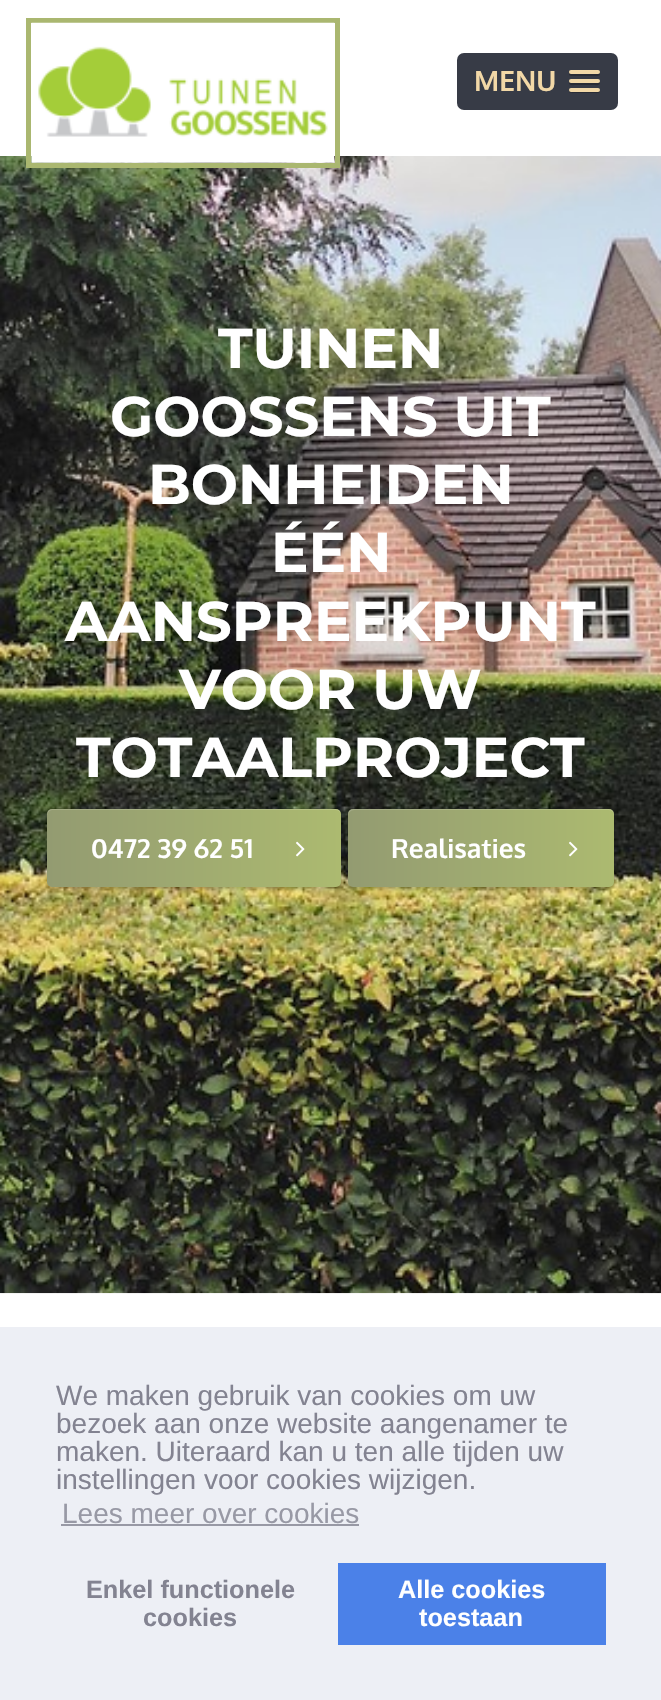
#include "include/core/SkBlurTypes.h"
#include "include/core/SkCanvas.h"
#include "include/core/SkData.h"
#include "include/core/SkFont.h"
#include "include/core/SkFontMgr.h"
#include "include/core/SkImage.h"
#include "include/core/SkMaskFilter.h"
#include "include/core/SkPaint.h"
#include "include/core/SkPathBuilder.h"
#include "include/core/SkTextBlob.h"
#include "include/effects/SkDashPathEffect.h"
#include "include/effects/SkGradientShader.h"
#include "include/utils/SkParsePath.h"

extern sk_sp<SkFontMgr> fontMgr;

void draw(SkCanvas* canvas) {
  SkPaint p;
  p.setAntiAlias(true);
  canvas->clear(SK_ColorWHITE);
  canvas->drawImageRect(SkImages::DeferredFromEncodedData(SkData::MakeFromFileName("images/2.png")), SkRect::MakeLTRB(0, 156, 661, 1294), SkSamplingOptions());
  p.setStyle(SkPaint::kStroke_Style);
  p.setStrokeWidth(5);
  p.setColor(SkColorSetRGB(170, 183, 112));
  canvas->drawRect(SkRect::MakeLTRB(28.5f, 20.5f, 337.5f, 165.5f), p);
  canvas->drawImageRect(SkImages::DeferredFromEncodedData(SkData::MakeFromFileName("images/1.png")), SkRect::MakeLTRB(31, 22, 335, 163), SkSamplingOptions());
  p.setStyle(SkPaint::kFill_Style);
  p.setColor(SkColorSetRGB(55, 59, 70));
  canvas->drawRoundRect(SkRect::MakeLTRB(457, 53, 618, 110), 7, 7, p);
  p.setColor(SkColorSetRGB(41, 44, 53));
  canvas->drawPath(SkPathBuilder().moveTo(569.5f, 73).cubicTo(567, 77, 575, 76, 575.5f, 76).lineTo(593.5f, 76).cubicTo(594, 76, 602, 77, 599.5f, 73).lineTo(598.5f, 73.5f).lineTo(570.5f, 73.5f).close().detach(), p);
  p.setColor(SkColorSetRGB(242, 216, 167));
  canvas->drawRoundRect(SkRect::MakeLTRB(569, 70, 600, 74), 2, 2, p);
  p.setColor(SkColorSetRGB(41, 44, 53));
  canvas->drawPath(SkPathBuilder().moveTo(569.5f, 82).lineTo(569, 83.5f).cubicTo(569.5f, 86, 574.5f, 85, 575.5f, 85).lineTo(593.5f, 85).cubicTo(594.5f, 85, 599.5f, 86, 600, 83.5f).lineTo(599.5f, 82).cubicTo(598.5f, 82.5f, 570.5f, 82.5f, 569.5f, 82).close().detach(), p);
  p.setColor(SkColorSetRGB(242, 216, 167));
  canvas->drawRoundRect(SkRect::MakeLTRB(569, 79, 600, 83), 2, 2, p);
  p.setColor(SkColorSetRGB(41, 44, 53));
  canvas->drawPath(SkPathBuilder().moveTo(569, 90.5f).cubicTo(568, 94, 574.5f, 93, 575.5f, 93).lineTo(593.5f, 93).cubicTo(594.5f, 93, 601, 94, 600, 90.5f).lineTo(598.5f, 91).lineTo(570.5f, 91).close().detach(), p);
  p.setColor(SkColorSetRGB(242, 216, 167));
  canvas->drawRoundRect(SkRect::MakeLTRB(569, 88, 600, 92), 2, 2, p);
  p.setColor(SkColorSetARGB(64, 0, 0, 0));
  p.setMaskFilter(SkMaskFilter::MakeBlur(kNormal_SkBlurStyle, 2));
  canvas->drawRoundRect(SkRect::MakeLTRB(47, 810, 341, 889), 5, 5, p);
  p.setMaskFilter(nullptr);
  {
    const SkColor colors[] = {SkColorSetRGB(147, 155, 113), SkColorSetRGB(172, 186, 112)};
    const float stops[] = {0, 1};
    const SkPoint ends[] = {{47, 848}, {341, 848}};
    p.setShader(SkGradientShader::MakeLinear(ends, colors, stops, 2, SkTileMode::kClamp));
    p.setAlpha(255);
  }
  canvas->drawRoundRect(SkRect::MakeLTRB(47, 809, 341, 887), 5, 5, p);
  p.setShader(nullptr);
  p.setColor(SkColorSetARGB(38, 255, 255, 255));
  canvas->drawPath(SkPathBuilder().moveTo(52, 810).lineTo(336, 810).cubicTo(339, 810, 341, 813, 341, 816).cubicTo(341, 813, 340, 809, 336, 809).lineTo(51, 809).cubicTo(47, 810, 47, 813, 47, 816).cubicTo(47, 813, 50, 810, 52, 810).close().detach(), p);
  canvas->drawImageRect(SkImages::DeferredFromEncodedData(SkData::MakeFromFileName("images/3.png")), SkRect::MakeLTRB(296, 841, 305, 857), SkSamplingOptions());
  p.setColor(SkColorSetARGB(64, 0, 0, 0));
  p.setMaskFilter(SkMaskFilter::MakeBlur(kNormal_SkBlurStyle, 2));
  canvas->drawRoundRect(SkRect::MakeLTRB(348, 810, 614, 889), 5, 5, p);
  p.setMaskFilter(nullptr);
  {
    const SkColor colors[] = {SkColorSetRGB(147, 155, 113), SkColorSetRGB(172, 186, 112)};
    const float stops[] = {0, 1};
    const SkPoint ends[] = {{348, 848}, {614, 848}};
    p.setShader(SkGradientShader::MakeLinear(ends, colors, stops, 2, SkTileMode::kClamp));
    p.setAlpha(255);
  }
  canvas->drawRoundRect(SkRect::MakeLTRB(348, 809, 614, 887), 5, 5, p);
  p.setShader(nullptr);
  p.setColor(SkColorSetARGB(38, 255, 255, 255));
  canvas->drawPath(SkPathBuilder().moveTo(354, 810).lineTo(609, 810).cubicTo(612, 810, 614, 813, 614, 816).lineTo(614, 814).cubicTo(614, 811, 612, 809, 609, 809).lineTo(353, 809).cubicTo(350, 809, 348, 811, 348, 814).lineTo(348, 816).cubicTo(348, 813, 351, 810, 354, 810).close().detach(), p);
  canvas->drawImageRect(SkImages::DeferredFromEncodedData(SkData::MakeFromFileName("images/4.png")), SkRect::MakeLTRB(569, 841, 578, 857), SkSamplingOptions());
  p.setColor(SkColorSetRGB(237, 239, 245));
  canvas->drawRect(SkRect::MakeLTRB(0, 1327, 661, 1700), p);
  p.setColor(SkColorSetRGB(152, 153, 165));
  canvas->drawRect(SkRect::MakeLTRB(61, 1524, 359, 1526), p);
  p.setColor(SkColorSetRGB(75, 129, 232));
  canvas->drawRect(SkRect::MakeLTRB(338, 1563, 606, 1645), p);
  SkFont font1(fontMgr->matchFamilyStyle("Oxygen", SkFontStyle::Bold()), 28);
  font1.setSubpixel(true);
  p.setColor(SkColorSetRGB(242, 216, 167));
  canvas->drawString("MENU", 474, 91, font1, p);
  SkFont font2(fontMgr->matchFamilyStyle("Montserrat", SkFontStyle::Bold()), 56);
  font2.setSubpixel(true);
  p.setColor(SK_ColorWHITE);
  canvas->drawString("TUINEN", 218, 368, font2, p);
  canvas->drawString("GOOSSENS UIT", 110, 436, font2, p);
  canvas->drawString("BONHEIDEN", 148, 504, font2, p);
  canvas->drawString("ÉÉN", 271, 572, font2, p);
  canvas->drawString("AANSPREEKPUNT", 65, 641, font2, p);
  canvas->drawString("VOOR UW", 179, 709, font2, p);
  canvas->drawString("TOTAALPROJECT", 76, 777, font2, p);
  SkFont font3(fontMgr->matchFamilyStyle("Oxygen", SkFontStyle::Bold()), 26.25f);
  font3.setSubpixel(true);
  canvas->drawString("0472 39 62 51", 91, 858, font3, p);
  canvas->drawString("Realisaties", 391, 858, font3, p);
  SkFont font4(fontMgr->matchFamilyStyle("Liberation Sans", SkFontStyle::Normal()), 28);
  font4.setSubpixel(true);
  p.setColor(SkColorSetRGB(131, 131, 145));
  canvas->drawString("We maken gebruik van cookies om uw", 56, 1405, font4, p);
  canvas->drawString("bezoek aan onze website aangenamer te", 56, 1433, font4, p);
  canvas->drawString("maken. Uiteraard kan u ten alle tijden uw", 56, 1461, font4, p);
  canvas->drawString("instellingen voor cookies wijzigen.", 56, 1489, font4, p);
  p.setColor(SkColorSetRGB(152, 153, 165));
  canvas->drawString("Lees meer over cookies", 62, 1523, font4, p);
  SkFont font5(fontMgr->matchFamilyStyle("Liberation Sans", SkFontStyle::Bold()), 25.25f);
  font5.setSubpixel(true);
  p.setColor(SkColorSetRGB(131, 131, 145));
  canvas->drawString("Enkel functionele", 86, 1598, font5, p);
  canvas->drawString("cookies", 143, 1626, font5, p);
  p.setColor(SK_ColorWHITE);
  canvas->drawString("Alle cookies", 398, 1598, font5, p);
  canvas->drawString("toestaan", 419, 1626, font5, p);
}
